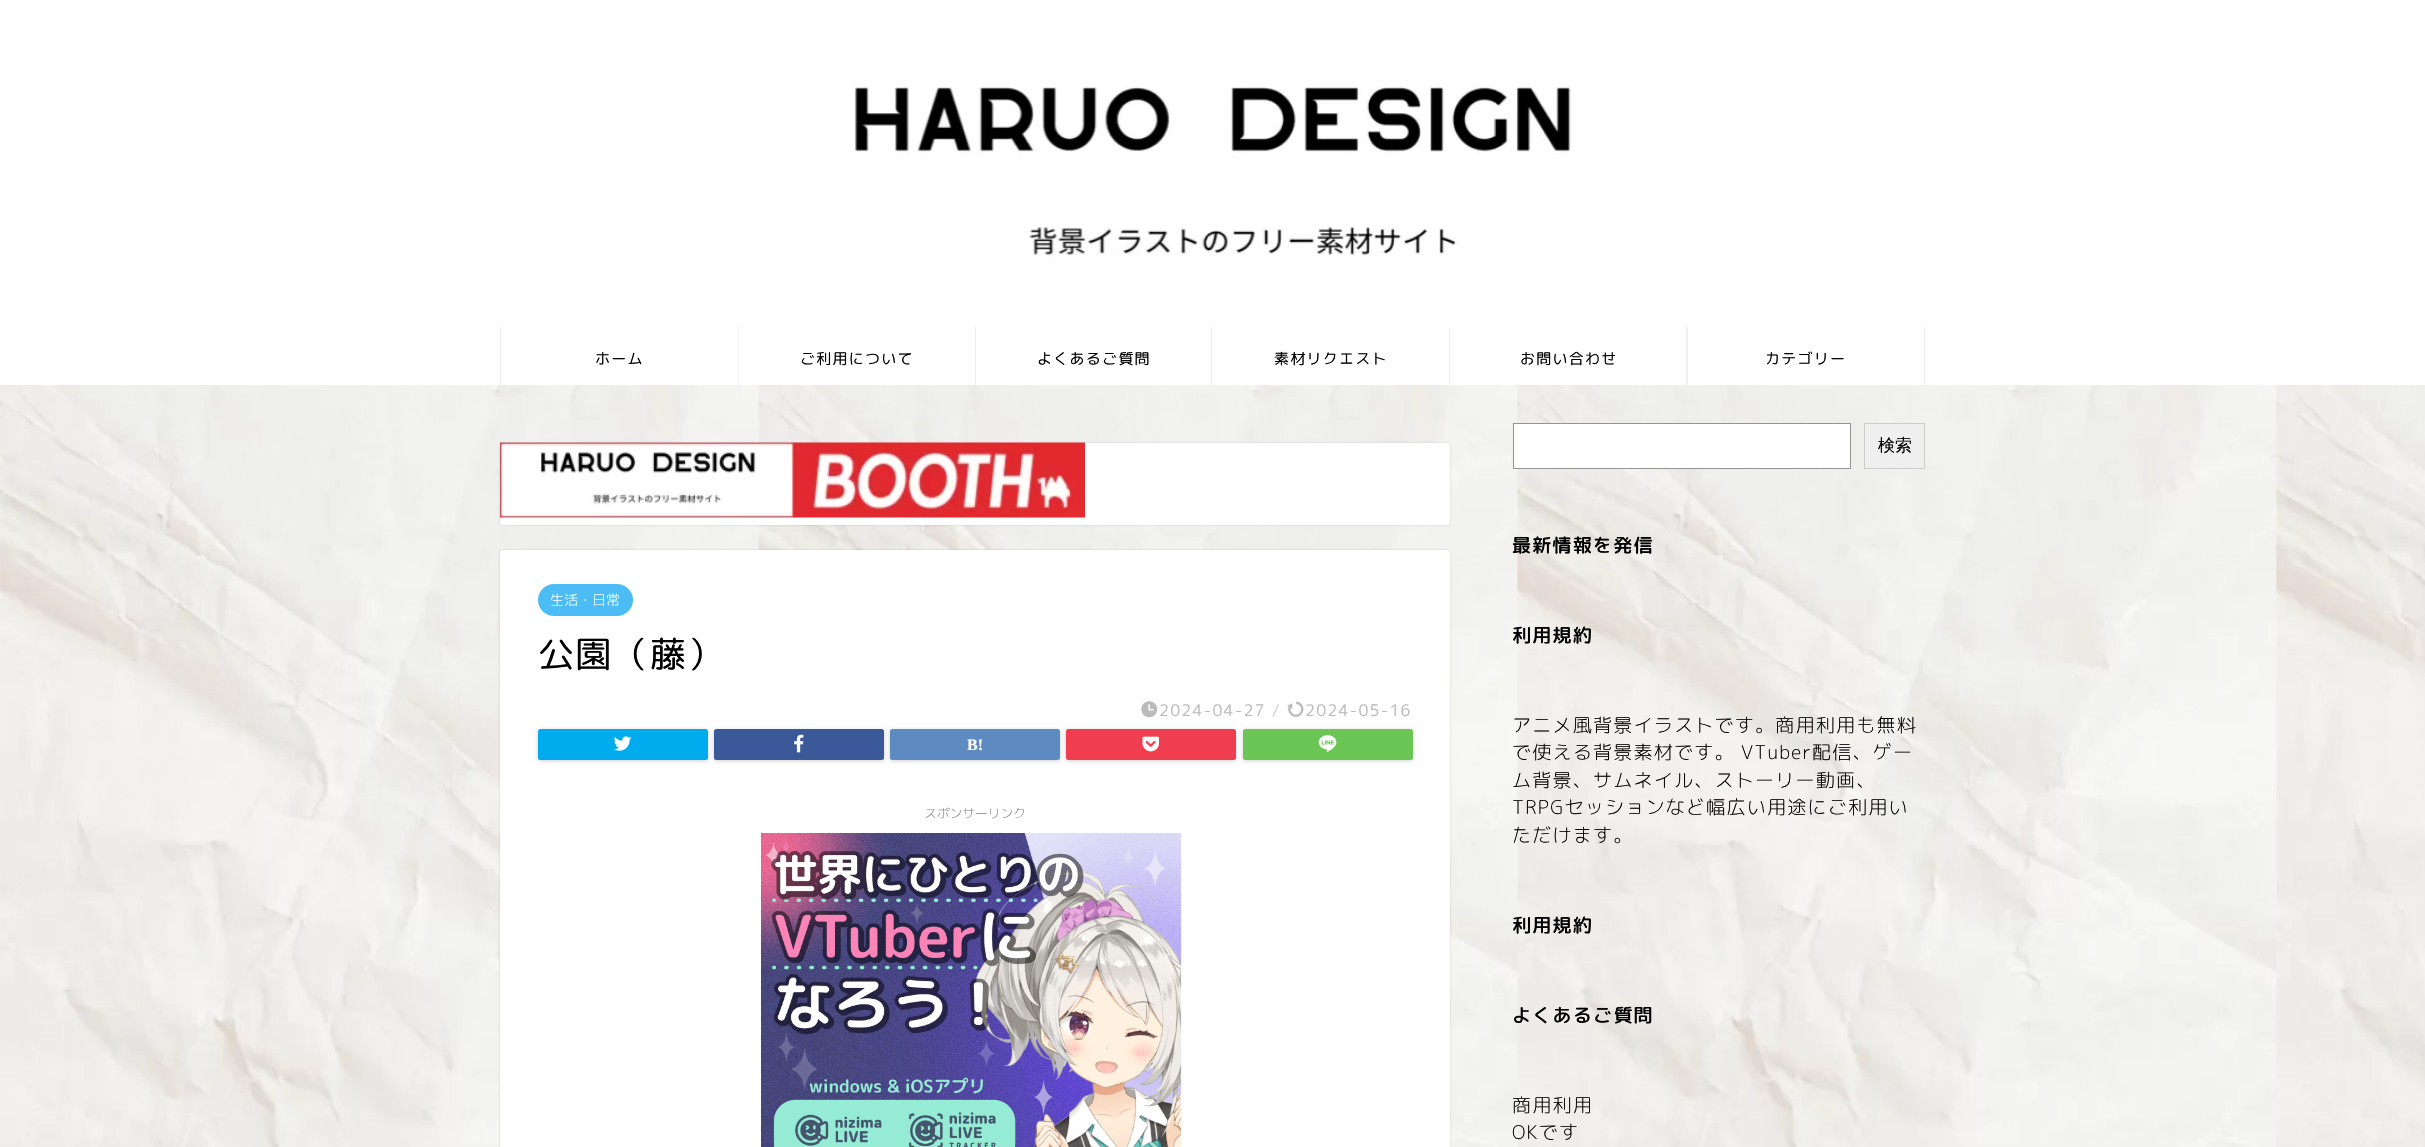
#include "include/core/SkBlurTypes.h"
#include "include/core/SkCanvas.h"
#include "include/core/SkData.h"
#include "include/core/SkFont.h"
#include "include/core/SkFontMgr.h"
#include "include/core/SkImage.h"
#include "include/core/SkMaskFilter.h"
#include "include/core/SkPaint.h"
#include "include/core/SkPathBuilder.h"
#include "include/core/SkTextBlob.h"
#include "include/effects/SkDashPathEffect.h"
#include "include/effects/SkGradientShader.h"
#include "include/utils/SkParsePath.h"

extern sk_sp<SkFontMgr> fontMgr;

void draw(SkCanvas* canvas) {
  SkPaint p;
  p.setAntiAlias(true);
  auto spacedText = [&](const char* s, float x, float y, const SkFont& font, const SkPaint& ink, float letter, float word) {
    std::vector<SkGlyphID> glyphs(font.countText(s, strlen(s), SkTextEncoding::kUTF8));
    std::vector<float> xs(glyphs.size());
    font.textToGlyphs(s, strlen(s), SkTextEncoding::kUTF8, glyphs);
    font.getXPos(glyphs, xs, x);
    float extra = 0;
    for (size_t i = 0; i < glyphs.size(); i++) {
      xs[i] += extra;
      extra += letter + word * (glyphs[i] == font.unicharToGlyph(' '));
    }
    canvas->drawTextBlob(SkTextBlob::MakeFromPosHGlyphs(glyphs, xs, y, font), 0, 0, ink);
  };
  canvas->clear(SK_ColorWHITE);
  canvas->drawImageRect(SkImages::DeferredFromEncodedData(SkData::MakeFromFileName("images/1.png")), SkRect::MakeLTRB(0, 385, 2425, 1147), SkSamplingOptions());
  canvas->drawImageRect(SkImages::DeferredFromEncodedData(SkData::MakeFromFileName("images/2.png")), SkRect::MakeLTRB(854, 86, 1571, 258), SkSamplingOptions());
  p.setColor(SkColorSetRGB(239, 239, 239));
  canvas->drawPath(SkPathBuilder().moveTo(500, 385).lineTo(500, 325).lineTo(501, 328).lineTo(501, 385).close().detach(), p);
  canvas->drawPath(SkPathBuilder().moveTo(738, 385).lineTo(738, 325).lineTo(739, 328).lineTo(739, 385).close().detach(), p);
  canvas->drawPath(SkPathBuilder().moveTo(975, 385).lineTo(975, 325).lineTo(976, 328).lineTo(976, 385).close().detach(), p);
  canvas->drawPath(SkPathBuilder().moveTo(1211, 385).lineTo(1211, 325).lineTo(1212, 328).lineTo(1212, 385).close().detach(), p);
  canvas->drawPath(SkPathBuilder().moveTo(1449, 385).lineTo(1449, 325).lineTo(1450, 328).lineTo(1450, 385).close().detach(), p);
  canvas->drawPath(SkPathBuilder().moveTo(1925, 325).lineTo(1925, 385).lineTo(1924, 385).lineTo(1924, 328).close().detach(), p);
  canvas->drawPath(SkPathBuilder().moveTo(1686, 385).lineTo(1686, 325).lineTo(1688, 328).lineTo(1688, 385).close().detach(), p);
  p.setColor(SkColorSetARGB(46, 0, 0, 0));
  p.setMaskFilter(SkMaskFilter::MakeBlur(kNormal_SkBlurStyle, 1));
  canvas->drawRoundRect(SkRect::MakeLTRB(500, 443, 1450, 525), 2.5f, 2.5f, p);
  p.setMaskFilter(nullptr);
  p.setColor(SK_ColorWHITE);
  canvas->drawRoundRect(SkRect::MakeLTRB(500, 443, 1450, 525), 2.5f, 2.5f, p);
  canvas->drawImageRect(SkImages::DeferredFromEncodedData(SkData::MakeFromFileName("images/3.png")), SkRect::MakeLTRB(500, 442, 1085, 518), SkSamplingOptions());
  p.setColor(SkColorSetARGB(46, 0, 0, 0));
  p.setMaskFilter(SkMaskFilter::MakeBlur(kNormal_SkBlurStyle, 1));
  canvas->drawRoundRect(SkRect::MakeLTRB(500, 550, 1450, 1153), 2.5f, 2.5f, p);
  p.setMaskFilter(nullptr);
  p.setColor(SK_ColorWHITE);
  canvas->drawRoundRect(SkRect::MakeLTRB(500, 550, 1450, 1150), 2.5f, 2.5f, p);
  p.setColor(SkColorSetRGB(75, 188, 244));
  canvas->drawRoundRect(SkRect::MakeLTRB(538, 584, 633, 616), 16, 16, p);
  canvas->drawImageRect(SkImages::DeferredFromEncodedData(SkData::MakeFromFileName("images/4.png")), SkRect::MakeLTRB(1141, 701, 1158, 718), SkSamplingOptions());
  canvas->drawImageRect(SkImages::DeferredFromEncodedData(SkData::MakeFromFileName("images/5.png")), SkRect::MakeLTRB(1287, 701, 1304, 717), SkSamplingOptions());
  p.setColor(SkColorSetARGB(46, 0, 0, 0));
  p.setMaskFilter(SkMaskFilter::MakeBlur(kNormal_SkBlurStyle, 2));
  canvas->drawRoundRect(SkRect::MakeLTRB(538, 730, 708, 761), 2.5f, 2.5f, p);
  p.setMaskFilter(nullptr);
  p.setColor(SkColorSetRGB(0, 172, 238));
  canvas->drawRoundRect(SkRect::MakeLTRB(539.5f, 730.5f, 706.5f, 758.5f), 1, 1, p);
  p.setStyle(SkPaint::kStroke_Style);
  p.setStrokeWidth(3);
  canvas->drawRoundRect(SkRect::MakeLTRB(539.5f, 730.5f, 706.5f, 758.5f), 1, 1, p);
  canvas->drawImageRect(SkImages::DeferredFromEncodedData(SkData::MakeFromFileName("images/6.png")), SkRect::MakeLTRB(614, 736, 632, 751), SkSamplingOptions());
  p.setStyle(SkPaint::kFill_Style);
  p.setColor(SkColorSetARGB(46, 0, 0, 0));
  p.setMaskFilter(SkMaskFilter::MakeBlur(kNormal_SkBlurStyle, 2));
  canvas->drawRoundRect(SkRect::MakeLTRB(714, 730, 884, 761), 2.5f, 2.5f, p);
  p.setMaskFilter(nullptr);
  p.setColor(SkColorSetRGB(59, 89, 152));
  canvas->drawRoundRect(SkRect::MakeLTRB(715.5f, 730.5f, 882.5f, 758.5f), 1, 1, p);
  p.setStyle(SkPaint::kStroke_Style);
  canvas->drawRoundRect(SkRect::MakeLTRB(715.5f, 730.5f, 882.5f, 758.5f), 1, 1, p);
  canvas->drawImageRect(SkImages::DeferredFromEncodedData(SkData::MakeFromFileName("images/7.png")), SkRect::MakeLTRB(794, 734, 804, 753), SkSamplingOptions());
  p.setStyle(SkPaint::kFill_Style);
  p.setColor(SkColorSetARGB(46, 0, 0, 0));
  p.setMaskFilter(SkMaskFilter::MakeBlur(kNormal_SkBlurStyle, 2));
  canvas->drawRoundRect(SkRect::MakeLTRB(890, 730, 1060, 761), 2.5f, 2.5f, p);
  p.setMaskFilter(nullptr);
  p.setColor(SkColorSetRGB(93, 138, 193));
  canvas->drawRoundRect(SkRect::MakeLTRB(891.5f, 730.5f, 1058.5f, 758.5f), 1, 1, p);
  p.setStyle(SkPaint::kStroke_Style);
  canvas->drawRoundRect(SkRect::MakeLTRB(891.5f, 730.5f, 1058.5f, 758.5f), 1, 1, p);
  p.setStyle(SkPaint::kFill_Style);
  p.setColor(SkColorSetARGB(46, 0, 0, 0));
  p.setMaskFilter(SkMaskFilter::MakeBlur(kNormal_SkBlurStyle, 2));
  canvas->drawRoundRect(SkRect::MakeLTRB(1066, 730, 1236, 761), 2.5f, 2.5f, p);
  p.setMaskFilter(nullptr);
  p.setColor(SkColorSetRGB(240, 62, 81));
  canvas->drawRoundRect(SkRect::MakeLTRB(1067.5f, 730.5f, 1234.5f, 758.5f), 1, 1, p);
  p.setStyle(SkPaint::kStroke_Style);
  canvas->drawRoundRect(SkRect::MakeLTRB(1067.5f, 730.5f, 1234.5f, 758.5f), 1, 1, p);
  canvas->drawImageRect(SkImages::DeferredFromEncodedData(SkData::MakeFromFileName("images/8.png")), SkRect::MakeLTRB(1142, 736, 1159, 752), SkSamplingOptions());
  p.setStyle(SkPaint::kFill_Style);
  p.setColor(SkColorSetARGB(46, 0, 0, 0));
  p.setMaskFilter(SkMaskFilter::MakeBlur(kNormal_SkBlurStyle, 2));
  canvas->drawRoundRect(SkRect::MakeLTRB(1243, 730, 1413, 761), 2.5f, 2.5f, p);
  p.setMaskFilter(nullptr);
  p.setColor(SkColorSetRGB(108, 198, 85));
  canvas->drawRoundRect(SkRect::MakeLTRB(1244.5f, 730.5f, 1411.5f, 758.5f), 1, 1, p);
  p.setStyle(SkPaint::kStroke_Style);
  canvas->drawRoundRect(SkRect::MakeLTRB(1244.5f, 730.5f, 1411.5f, 758.5f), 1, 1, p);
  canvas->drawImageRect(SkImages::DeferredFromEncodedData(SkData::MakeFromFileName("images/9.png")), SkRect::MakeLTRB(1318, 735, 1337, 752), SkSamplingOptions());
  canvas->drawImageRect(SkImages::DeferredFromEncodedData(SkData::MakeFromFileName("images/10.png")), SkRect::MakeLTRB(761, 833, 1182, 1147), SkSamplingOptions());
  p.setStyle(SkPaint::kFill_Style);
  p.setColor(SK_ColorWHITE);
  canvas->drawRect(SkRect::MakeLTRB(1513.5f, 423.5f, 1850.5f, 468.5f), p);
  p.setStyle(SkPaint::kStroke_Style);
  p.setStrokeWidth(1);
  p.setColor(SkColorSetRGB(148, 148, 148));
  canvas->drawRect(SkRect::MakeLTRB(1513.5f, 423.5f, 1850.5f, 468.5f), p);
  p.setStyle(SkPaint::kFill_Style);
  p.setColor(SkColorSetRGB(239, 239, 239));
  canvas->drawRect(SkRect::MakeLTRB(1864.5f, 423.5f, 1924.5f, 468.5f), p);
  p.setStyle(SkPaint::kStroke_Style);
  p.setColor(SkColorSetRGB(204, 204, 204));
  canvas->drawRect(SkRect::MakeLTRB(1864.5f, 423.5f, 1924.5f, 468.5f), p);
  SkFont font1(fontMgr->matchFamilyStyle("Rounded Mplus 1c", SkFontStyle::Normal()), 15);
  font1.setSubpixel(true);
  p.setStyle(SkPaint::kFill_Style);
  p.setColor(SK_ColorBLACK);
  spacedText("ホーム", 595, 364, font1, p, 1.25f, 0);
  spacedText("ご利用について", 800, 364, font1, p, 1.25f, 0);
  spacedText("よくあるご質問", 1037, 364, font1, p, 1.25f, 0);
  spacedText("素材リクエスト", 1274, 364, font1, p, 1.25f, 0);
  spacedText("お問い合わせ", 1520, 364, font1, p, 1.25f, 0);
  spacedText("カテゴリー", 1765, 364, font1, p, 1.25f, 0);
  SkFont font2(fontMgr->matchFamilyStyle("Rounded Mplus 1c", SkFontStyle(300, SkFontStyle::kNormal_Width, SkFontStyle::kUpright_Slant)), 14);
  font2.setSubpixel(true);
  p.setColor(SK_ColorWHITE);
  canvas->drawString("生活・日常", 550, 605, font2, p);
  SkFont font3(fontMgr->matchFamilyStyle("Rounded Mplus 1c", SkFontStyle::Normal()), 36);
  font3.setSubpixel(true);
  p.setColor(SK_ColorBLACK);
  spacedText("公園（藤）", 538, 667, font3, p, 1.25f, 0);
  SkFont font4(fontMgr->matchFamilyStyle("Rounded Mplus 1c", SkFontStyle::Normal()), 16);
  font4.setSubpixel(true);
  p.setColor(SkColorSetRGB(187, 187, 187));
  spacedText("2024-04-27", 1159, 716, font4, p, 1.25f, 0);
  SkFont font5(fontMgr->matchFamilyStyle("Rounded Mplus 1c", SkFontStyle(300, SkFontStyle::kNormal_Width, SkFontStyle::kUpright_Slant)), 16);
  font5.setSubpixel(true);
  spacedText("/", 1272, 716, font5, p, 1.25f, 0);
  spacedText("2024-05-16", 1305, 716, font4, p, 1.25f, 0);
  SkFont font6(fontMgr->matchFamilyStyle("Liberation Serif", SkFontStyle::Bold()), 16);
  font6.setSubpixel(true);
  p.setColor(SK_ColorWHITE);
  canvas->drawString("B!", 967, 750, font6, p);
  SkFont font7(fontMgr->matchFamilyStyle("Rounded Mplus 1c", SkFontStyle(300, SkFontStyle::kNormal_Width, SkFontStyle::kUpright_Slant)), 12.75f);
  font7.setSubpixel(true);
  p.setColor(SkColorSetRGB(136, 136, 136));
  canvas->drawString("スポンサーリンク", 924, 818, font7, p);
  SkFont font8(fontMgr->matchFamilyStyle("WenQuanYi Zen Hei", SkFontStyle(500, SkFontStyle::kNormal_Width, SkFontStyle::kUpright_Slant)), 17);
  font8.setSubpixel(true);
  p.setColor(SK_ColorBLACK);
  canvas->drawString("検索", 1878, 451, font8, p);
  SkFont font9(fontMgr->matchFamilyStyle("Rounded Mplus 1c", SkFontStyle(500, SkFontStyle::kNormal_Width, SkFontStyle::kUpright_Slant)), 19);
  font9.setSubpixel(true);
  spacedText("最新情報を発信", 1512, 552, font9, p, 1.25f, 0);
  spacedText("利用規約", 1512, 642, font9, p, 1.25f, 0);
  SkFont font10(fontMgr->matchFamilyStyle("Rounded Mplus 1c", SkFontStyle(300, SkFontStyle::kNormal_Width, SkFontStyle::kUpright_Slant)), 19);
  font10.setSubpixel(true);
  spacedText("アニメ風背景イラストです。商用利用も無料", 1512, 732, font10, p, 1.25f, 0);
  spacedText("で使える背景素材です。 VTuber配信、ゲー", 1512, 759, font10, p, 1.25f, 0);
  spacedText("ム背景、サムネイル、ストーリー動画、", 1512, 787, font10, p, 1.25f, 0);
  spacedText("TRPGセッションなど幅広い用途にご利用い", 1512, 814, font10, p, 1.25f, 0);
  spacedText("ただけます。", 1512, 842, font10, p, 1.25f, 0);
  spacedText("利用規約", 1512, 932, font9, p, 1.25f, 0);
  spacedText("よくあるご質問", 1512, 1022, font9, p, 1.25f, 0);
  spacedText("商用利用", 1512, 1112, font10, p, 1.25f, 0);
  spacedText("OKです", 1512, 1139, font10, p, 1.25f, 0);
}
